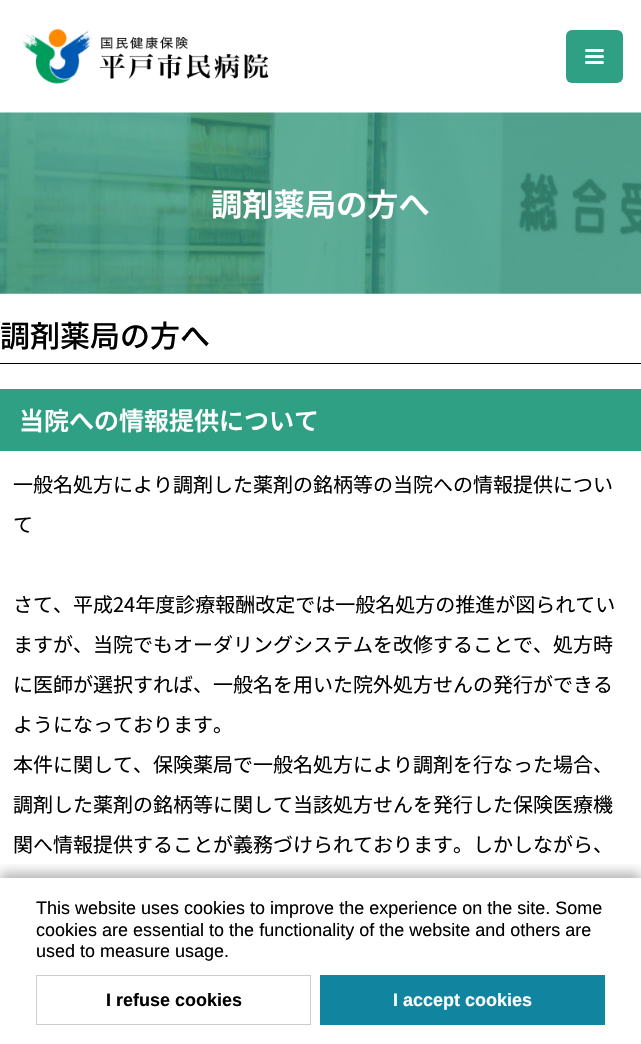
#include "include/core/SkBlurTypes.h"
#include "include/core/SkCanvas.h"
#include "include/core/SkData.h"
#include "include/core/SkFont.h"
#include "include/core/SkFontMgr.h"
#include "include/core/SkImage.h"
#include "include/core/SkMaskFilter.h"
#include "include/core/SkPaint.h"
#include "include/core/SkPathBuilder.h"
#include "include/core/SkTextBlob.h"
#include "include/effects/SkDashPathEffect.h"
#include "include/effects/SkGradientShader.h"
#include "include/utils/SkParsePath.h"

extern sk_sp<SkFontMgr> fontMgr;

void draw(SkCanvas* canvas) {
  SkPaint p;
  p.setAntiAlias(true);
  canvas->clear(SK_ColorWHITE);
  canvas->drawImageRect(SkImages::DeferredFromEncodedData(SkData::MakeFromFileName("images/1.png")), SkRect::MakeLTRB(23, 29, 269, 84), SkSamplingOptions());
  p.setColor(SkColorSetRGB(48, 160, 132));
  canvas->drawRoundRect(SkRect::MakeLTRB(566, 30, 623, 83), 6, 6, p);
  p.setColor(SK_ColorWHITE);
  canvas->drawRoundRect(SkRect::MakeLTRB(585, 49, 604, 52), 1.5f, 1.5f, p);
  canvas->drawRoundRect(SkRect::MakeLTRB(585, 55, 604, 58), 1.5f, 1.5f, p);
  canvas->drawRoundRect(SkRect::MakeLTRB(585, 61, 604, 64), 1.5f, 1.5f, p);
  canvas->drawImageRect(SkImages::DeferredFromEncodedData(SkData::MakeFromFileName("images/2.png")), SkRect::MakeLTRB(0, 112, 641, 294), SkSamplingOptions());
  p.setColor(SK_ColorBLACK);
  canvas->drawRect(SkRect::MakeLTRB(0, 363, 641, 364), p);
  p.setColor(SkColorSetRGB(48, 160, 132));
  canvas->drawRect(SkRect::MakeLTRB(0, 389, 641, 451), p);
  canvas->save();
  canvas->clipRect(SkRect::MakeLTRB(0, 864, 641, 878));
  p.setColor(SkColorSetARGB(77, 0, 0, 0));
  p.setMaskFilter(SkMaskFilter::MakeBlur(kNormal_SkBlurStyle, 6));
  canvas->drawRect(SkRect::MakeLTRB(0, 873, 641, 1040), p);
  p.setMaskFilter(nullptr);
  canvas->restore();
  p.setStyle(SkPaint::kStroke_Style);
  p.setStrokeWidth(1);
  p.setColor(SkColorSetRGB(204, 204, 204));
  canvas->drawRect(SkRect::MakeLTRB(36.5f, 975.5f, 310.5f, 1024.5f), p);
  p.setStyle(SkPaint::kFill_Style);
  p.setColor(SkColorSetRGB(17, 133, 160));
  canvas->drawRect(SkRect::MakeLTRB(320, 975, 605, 1025), p);
  SkFont font1(fontMgr->matchFamilyStyle("Noto Sans JP", SkFontStyle(600, SkFontStyle::kNormal_Width, SkFontStyle::kUpright_Slant)), 31.25f);
  font1.setSubpixel(true);
  p.setColor(SK_ColorWHITE);
  canvas->drawString("調剤薬局の方へ", 211, 216, font1, p);
  SkFont font2(fontMgr->matchFamilyStyle("Noto Sans JP", SkFontStyle(500, SkFontStyle::kNormal_Width, SkFontStyle::kUpright_Slant)), 30);
  font2.setSubpixel(true);
  p.setColor(SK_ColorBLACK);
  canvas->drawString("調剤薬局の方へ", 0, 347, font2, p);
  SkFont font3(fontMgr->matchFamilyStyle("Noto Sans JP", SkFontStyle(600, SkFontStyle::kNormal_Width, SkFontStyle::kUpright_Slant)), 25);
  font3.setSubpixel(true);
  p.setColor(SK_ColorWHITE);
  canvas->drawString("当院への情報提供について", 19, 430, font3, p);
  SkFont font4(fontMgr->matchFamilyStyle("Noto Sans JP", SkFontStyle::Normal()), 20);
  font4.setSubpixel(true);
  p.setColor(SK_ColorBLACK);
  canvas->drawString("一般名処方により調剤した薬剤の銘柄等の当院への情報提供につい", 13, 492, font4, p);
  canvas->drawString("て", 13, 532, font4, p);
  canvas->drawString("さて、平成24年度診療報酬改定では一般名処方の推進が図られてい", 13, 612, font4, p);
  canvas->drawString("ますが、当院でもオーダリングシステムを改修することで、処方時", 13, 652, font4, p);
  canvas->drawString("に医師が選択すれば、一般名を用いた院外処方せんの発行ができる", 13, 692, font4, p);
  canvas->drawString("ようになっております。", 13, 732, font4, p);
  canvas->drawString("本件に関して、保険薬局で一般名処方により調剤を行なった場合、", 13, 772, font4, p);
  canvas->drawString("調剤した薬剤の銘柄等に関して当該処方せんを発行した保険医療機", 13, 812, font4, p);
  canvas->drawString("関へ情報提供することが義務づけられております。しかしながら、", 13, 852, font4, p);
  SkFont font5(fontMgr->matchFamilyStyle("Liberation Sans", SkFontStyle::Normal()), 18);
  font5.setSubpixel(true);
  canvas->drawString("This website uses cookies to improve the experience on the site. Some", 36, 914, font5, p);
  canvas->drawString("cookies are essential to the functionality of the website and others are", 36, 936, font5, p);
  canvas->drawString("used to measure usage.", 36, 957, font5, p);
  SkFont font6(fontMgr->matchFamilyStyle("Liberation Sans", SkFontStyle::Bold()), 18);
  font6.setSubpixel(true);
  canvas->drawString("I refuse cookies", 106, 1006, font6, p);
  p.setColor(SK_ColorWHITE);
  canvas->drawString("I accept cookies", 393, 1006, font6, p);
}
